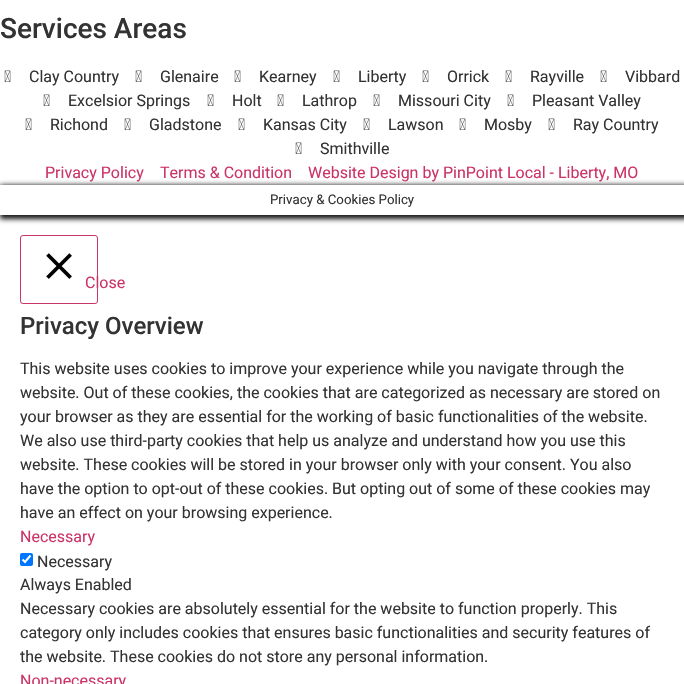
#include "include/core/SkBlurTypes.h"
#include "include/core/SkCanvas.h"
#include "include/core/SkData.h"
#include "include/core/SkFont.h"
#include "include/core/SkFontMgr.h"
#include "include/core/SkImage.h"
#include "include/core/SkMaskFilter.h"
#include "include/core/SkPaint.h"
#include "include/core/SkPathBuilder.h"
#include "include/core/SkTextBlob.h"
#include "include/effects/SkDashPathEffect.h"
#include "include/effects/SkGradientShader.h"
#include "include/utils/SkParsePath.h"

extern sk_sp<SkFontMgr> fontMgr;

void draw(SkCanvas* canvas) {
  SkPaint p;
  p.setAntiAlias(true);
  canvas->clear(SK_ColorWHITE);
  canvas->drawImageRect(SkImages::DeferredFromEncodedData(SkData::MakeFromFileName("images/1.png")), SkRect::MakeLTRB(4, 70, 11, 82), SkSamplingOptions());
  canvas->drawImageRect(SkImages::DeferredFromEncodedData(SkData::MakeFromFileName("images/1.png")), SkRect::MakeLTRB(135, 70, 142, 82), SkSamplingOptions());
  canvas->drawImageRect(SkImages::DeferredFromEncodedData(SkData::MakeFromFileName("images/1.png")), SkRect::MakeLTRB(234, 70, 241, 82), SkSamplingOptions());
  canvas->drawImageRect(SkImages::DeferredFromEncodedData(SkData::MakeFromFileName("images/1.png")), SkRect::MakeLTRB(333, 70, 340, 82), SkSamplingOptions());
  canvas->drawImageRect(SkImages::DeferredFromEncodedData(SkData::MakeFromFileName("images/1.png")), SkRect::MakeLTRB(422, 70, 429, 82), SkSamplingOptions());
  canvas->drawImageRect(SkImages::DeferredFromEncodedData(SkData::MakeFromFileName("images/1.png")), SkRect::MakeLTRB(505, 70, 512, 82), SkSamplingOptions());
  canvas->drawImageRect(SkImages::DeferredFromEncodedData(SkData::MakeFromFileName("images/1.png")), SkRect::MakeLTRB(600, 70, 607, 82), SkSamplingOptions());
  canvas->drawImageRect(SkImages::DeferredFromEncodedData(SkData::MakeFromFileName("images/1.png")), SkRect::MakeLTRB(43, 94, 50, 106), SkSamplingOptions());
  canvas->drawImageRect(SkImages::DeferredFromEncodedData(SkData::MakeFromFileName("images/1.png")), SkRect::MakeLTRB(207, 94, 214, 106), SkSamplingOptions());
  canvas->drawImageRect(SkImages::DeferredFromEncodedData(SkData::MakeFromFileName("images/1.png")), SkRect::MakeLTRB(277, 94, 284, 106), SkSamplingOptions());
  canvas->drawImageRect(SkImages::DeferredFromEncodedData(SkData::MakeFromFileName("images/1.png")), SkRect::MakeLTRB(373, 94, 380, 106), SkSamplingOptions());
  canvas->drawImageRect(SkImages::DeferredFromEncodedData(SkData::MakeFromFileName("images/1.png")), SkRect::MakeLTRB(507, 94, 514, 106), SkSamplingOptions());
  canvas->drawImageRect(SkImages::DeferredFromEncodedData(SkData::MakeFromFileName("images/1.png")), SkRect::MakeLTRB(25, 118, 32, 130), SkSamplingOptions());
  canvas->drawImageRect(SkImages::DeferredFromEncodedData(SkData::MakeFromFileName("images/1.png")), SkRect::MakeLTRB(124, 118, 131, 130), SkSamplingOptions());
  canvas->drawImageRect(SkImages::DeferredFromEncodedData(SkData::MakeFromFileName("images/1.png")), SkRect::MakeLTRB(238, 118, 245, 130), SkSamplingOptions());
  canvas->drawImageRect(SkImages::DeferredFromEncodedData(SkData::MakeFromFileName("images/1.png")), SkRect::MakeLTRB(363, 118, 370, 130), SkSamplingOptions());
  canvas->drawImageRect(SkImages::DeferredFromEncodedData(SkData::MakeFromFileName("images/1.png")), SkRect::MakeLTRB(459, 118, 466, 130), SkSamplingOptions());
  canvas->drawImageRect(SkImages::DeferredFromEncodedData(SkData::MakeFromFileName("images/1.png")), SkRect::MakeLTRB(548, 118, 555, 130), SkSamplingOptions());
  canvas->drawImageRect(SkImages::DeferredFromEncodedData(SkData::MakeFromFileName("images/1.png")), SkRect::MakeLTRB(295, 142, 302, 154), SkSamplingOptions());
  canvas->save();
  canvas->clipPath(SkPathBuilder(SkPathFillType::kEvenOdd).moveTo(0, 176).lineTo(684, 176).lineTo(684, 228).lineTo(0, 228).close().moveTo(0, 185).lineTo(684, 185).lineTo(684, 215).lineTo(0, 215).close().detach(), true);
  p.setColor(SkColorSetRGB(22, 22, 22));
  p.setMaskFilter(SkMaskFilter::MakeBlur(kNormal_SkBlurStyle, 2.5f));
  canvas->drawRect(SkRect::MakeLTRB(0, 185, 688, 219), p);
  p.setMaskFilter(nullptr);
  canvas->restore();
  p.setStyle(SkPaint::kStroke_Style);
  p.setStrokeWidth(1);
  p.setColor(SkColorSetRGB(204, 51, 102));
  canvas->drawRoundRect(SkRect::MakeLTRB(20.5f, 235.5f, 97.5f, 303.5f), 2.5f, 2.5f, p);
  canvas->drawImageRect(SkImages::DeferredFromEncodedData(SkData::MakeFromFileName("images/2.png")), SkRect::MakeLTRB(46, 253, 72, 279), SkSamplingOptions());
  p.setStyle(SkPaint::kFill_Style);
  p.setColor(SkColorSetRGB(0, 117, 255));
  canvas->drawRoundRect(SkRect::MakeLTRB(20, 553, 33, 566), 2, 2, p);
  p.setStyle(SkPaint::kStroke_Style);
  p.setStrokeWidth(2.1f);
  p.setColor(SK_ColorWHITE);
  canvas->drawPath(SkPathBuilder().moveTo(22.5f, 559.5f).lineTo(25, 562).lineTo(30.5f, 555.5f).detach(), p);
  SkFont font1(fontMgr->matchFamilyStyle("Roboto", SkFontStyle(500, SkFontStyle::kNormal_Width, SkFontStyle::kUpright_Slant)), 28);
  font1.setSubpixel(true);
  p.setStyle(SkPaint::kFill_Style);
  p.setColor(SkColorSetRGB(51, 51, 51));
  canvas->drawString("Services Areas", 0, 38, font1, p);
  SkFont font2(fontMgr->matchFamilyStyle("Roboto", SkFontStyle::Normal()), 16);
  font2.setSubpixel(true);
  canvas->drawString("Clay Country", 29, 82, font2, p);
  canvas->drawString("Glenaire", 160, 82, font2, p);
  canvas->drawString("Kearney", 259, 82, font2, p);
  canvas->drawString("Liberty", 358, 82, font2, p);
  canvas->drawString("Orrick", 447, 82, font2, p);
  canvas->drawString("Rayville", 530, 82, font2, p);
  canvas->drawString("Vibbard", 625, 82, font2, p);
  canvas->drawString("Excelsior Springs", 68, 106, font2, p);
  canvas->drawString("Holt", 232, 106, font2, p);
  canvas->drawString("Lathrop", 302, 106, font2, p);
  canvas->drawString("Missouri City", 398, 106, font2, p);
  canvas->drawString("Pleasant Valley", 532, 106, font2, p);
  canvas->drawString("Richond", 50, 130, font2, p);
  canvas->drawString("Gladstone", 149, 130, font2, p);
  canvas->drawString("Kansas City", 263, 130, font2, p);
  canvas->drawString("Lawson", 388, 130, font2, p);
  canvas->drawString("Mosby", 484, 130, font2, p);
  canvas->drawString("Ray Country", 573, 130, font2, p);
  canvas->drawString("Smithville", 320, 154, font2, p);
  p.setColor(SkColorSetRGB(204, 51, 102));
  canvas->drawString("Privacy Policy", 45, 178, font2, p);
  canvas->drawString("Terms & Condition", 160, 178, font2, p);
  canvas->drawString("Website Design by PinPoint Local - Liberty, MO", 308, 178, font2, p);
  SkFont font3(fontMgr->matchFamilyStyle("Roboto", SkFontStyle::Normal()), 13.25f);
  font3.setSubpixel(true);
  p.setColor(SkColorSetRGB(51, 51, 51));
  canvas->drawString("Privacy & Cookies Policy", 270, 204, font3, p);
  p.setColor(SkColorSetRGB(204, 51, 102));
  canvas->drawString("Close", 85, 288, font2, p);
  SkFont font4(fontMgr->matchFamilyStyle("Roboto", SkFontStyle(500, SkFontStyle::kNormal_Width, SkFontStyle::kUpright_Slant)), 24);
  font4.setSubpixel(true);
  p.setColor(SkColorSetRGB(51, 51, 51));
  canvas->drawString("Privacy Overview", 20, 334, font4, p);
  canvas->drawString("This website uses cookies to improve your experience while you navigate through the", 20, 374, font2, p);
  canvas->drawString("website. Out of these cookies, the cookies that are categorized as necessary are stored on", 20, 398, font2, p);
  canvas->drawString("your browser as they are essential for the working of basic functionalities of the website.", 20, 422, font2, p);
  canvas->drawString("We also use third-party cookies that help us analyze and understand how you use this", 20, 446, font2, p);
  canvas->drawString("website. These cookies will be stored in your browser only with your consent. You also", 20, 470, font2, p);
  canvas->drawString("have the option to opt-out of these cookies. But opting out of some of these cookies may", 20, 494, font2, p);
  canvas->drawString("have an effect on your browsing experience.", 20, 518, font2, p);
  p.setColor(SkColorSetRGB(204, 51, 102));
  canvas->drawString("Necessary", 20, 542, font2, p);
  p.setColor(SkColorSetRGB(51, 51, 51));
  canvas->drawString("Necessary", 37, 567, font2, p);
  canvas->drawString("Always Enabled", 20, 590, font2, p);
  canvas->drawString("Necessary cookies are absolutely essential for the website to function properly. This", 20, 614, font2, p);
  canvas->drawString("category only includes cookies that ensures basic functionalities and security features of", 20, 638, font2, p);
  canvas->drawString("the website. These cookies do not store any personal information.", 20, 662, font2, p);
  p.setColor(SkColorSetRGB(204, 51, 102));
  canvas->drawString("Non-necessary", 20, 686, font2, p);
}
